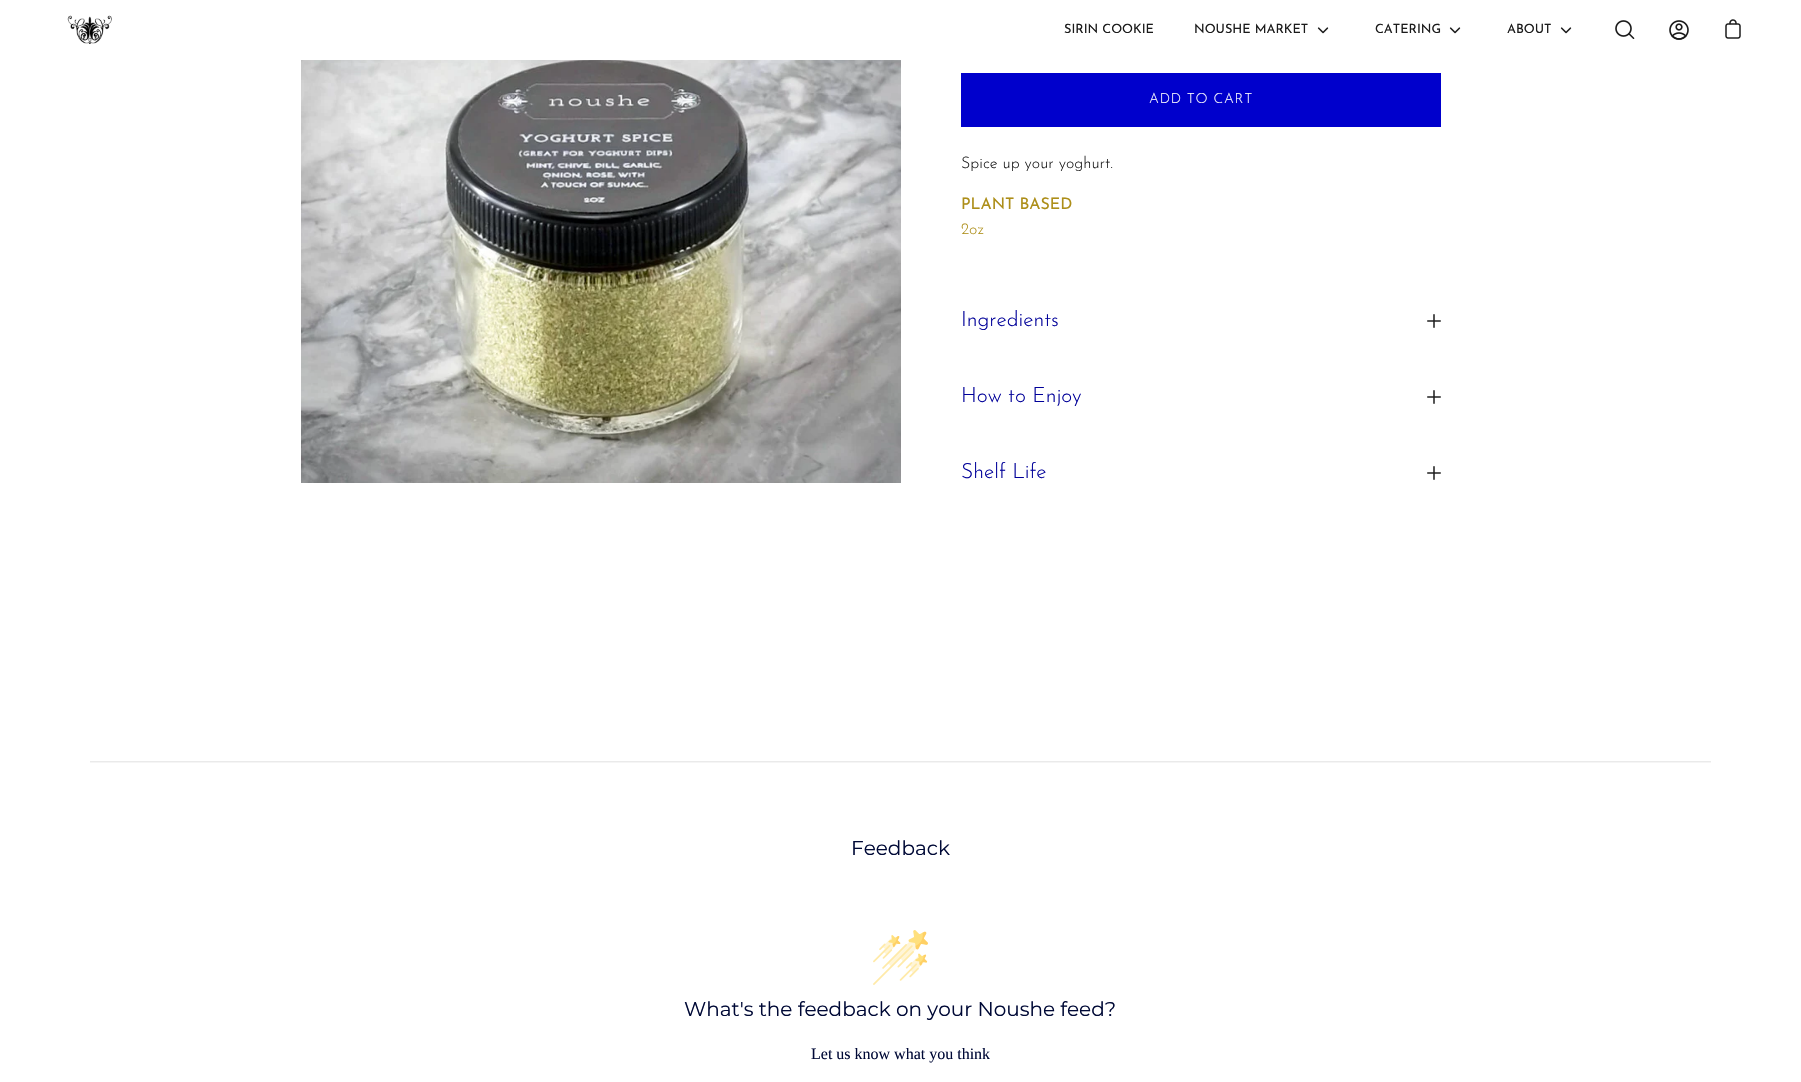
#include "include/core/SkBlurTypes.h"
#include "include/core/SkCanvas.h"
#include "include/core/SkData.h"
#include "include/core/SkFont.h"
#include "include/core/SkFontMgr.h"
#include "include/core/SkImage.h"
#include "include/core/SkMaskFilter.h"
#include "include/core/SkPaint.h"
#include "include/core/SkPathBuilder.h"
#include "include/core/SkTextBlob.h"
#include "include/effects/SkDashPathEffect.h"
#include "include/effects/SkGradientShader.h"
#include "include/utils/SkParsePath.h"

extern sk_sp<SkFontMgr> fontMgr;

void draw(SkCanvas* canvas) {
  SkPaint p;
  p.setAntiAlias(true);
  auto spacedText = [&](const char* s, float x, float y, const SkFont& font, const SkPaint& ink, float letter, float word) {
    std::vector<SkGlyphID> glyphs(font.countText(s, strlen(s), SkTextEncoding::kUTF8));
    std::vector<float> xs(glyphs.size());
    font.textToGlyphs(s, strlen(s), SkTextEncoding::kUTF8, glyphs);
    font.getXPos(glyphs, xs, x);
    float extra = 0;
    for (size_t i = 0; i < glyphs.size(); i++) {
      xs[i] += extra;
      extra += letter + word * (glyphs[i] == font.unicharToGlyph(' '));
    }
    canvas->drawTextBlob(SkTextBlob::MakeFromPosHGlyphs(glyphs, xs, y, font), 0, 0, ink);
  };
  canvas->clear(SK_ColorWHITE);
  canvas->drawImageRect(SkImages::DeferredFromEncodedData(SkData::MakeFromFileName("images/1.png")), SkRect::MakeLTRB(67, 15, 112, 44), SkSamplingOptions());
  canvas->drawImageRect(SkImages::DeferredFromEncodedData(SkData::MakeFromFileName("images/2.png")), SkRect::MakeLTRB(1317, 27, 1329, 34), SkSamplingOptions());
  canvas->drawImageRect(SkImages::DeferredFromEncodedData(SkData::MakeFromFileName("images/2.png")), SkRect::MakeLTRB(1449, 27, 1461, 34), SkSamplingOptions());
  canvas->drawImageRect(SkImages::DeferredFromEncodedData(SkData::MakeFromFileName("images/2.png")), SkRect::MakeLTRB(1560, 27, 1572, 34), SkSamplingOptions());
  canvas->drawImageRect(SkImages::DeferredFromEncodedData(SkData::MakeFromFileName("images/3.png")), SkRect::MakeLTRB(1615, 20, 1635, 39), SkSamplingOptions());
  canvas->drawImageRect(SkImages::DeferredFromEncodedData(SkData::MakeFromFileName("images/4.png")), SkRect::MakeLTRB(1669, 20, 1689, 40), SkSamplingOptions());
  canvas->drawImageRect(SkImages::DeferredFromEncodedData(SkData::MakeFromFileName("images/5.png")), SkRect::MakeLTRB(1725, 19, 1741, 39), SkSamplingOptions());
  canvas->drawImageRect(SkImages::DeferredFromEncodedData(SkData::MakeFromFileName("images/6.png")), SkRect::MakeLTRB(301, 60, 901, 483), SkSamplingOptions());
  p.setColor(SkColorSetRGB(0, 0, 204));
  canvas->drawRect(SkRect::MakeLTRB(961, 73, 1441, 127), p);
  canvas->drawImageRect(SkImages::DeferredFromEncodedData(SkData::MakeFromFileName("images/7.png")), SkRect::MakeLTRB(1427, 314, 1441, 328), SkSamplingOptions());
  canvas->drawImageRect(SkImages::DeferredFromEncodedData(SkData::MakeFromFileName("images/7.png")), SkRect::MakeLTRB(1427, 390, 1441, 404), SkSamplingOptions());
  canvas->drawImageRect(SkImages::DeferredFromEncodedData(SkData::MakeFromFileName("images/7.png")), SkRect::MakeLTRB(1427, 466, 1441, 480), SkSamplingOptions());
  canvas->drawImageRect(SkImages::DeferredFromEncodedData(SkData::MakeFromFileName("images/8.png")), SkRect::MakeLTRB(90, 761, 1711, 763), SkSamplingOptions());
  canvas->drawImageRect(SkImages::DeferredFromEncodedData(SkData::MakeFromFileName("images/9.png")), SkRect::MakeLTRB(873, 930, 928, 985), SkSamplingOptions());
  SkFont font1(fontMgr->matchFamilyStyle("Josefin Sans", SkFontStyle::Normal()), 12.75f);
  font1.setSubpixel(true);
  p.setColor(SkColorSetRGB(27, 27, 27));
  canvas->drawString("SIRIN COOKIE", 1064, 33, font1, p);
  canvas->drawString("NOUSHE MARKET", 1194, 33, font1, p);
  canvas->drawString("CATERING", 1375, 33, font1, p);
  canvas->drawString("ABOUT", 1507, 33, font1, p);
  SkFont font2(fontMgr->matchFamilyStyle("Josefin Sans", SkFontStyle(300, SkFontStyle::kNormal_Width, SkFontStyle::kUpright_Slant)), 14);
  font2.setSubpixel(true);
  p.setColor(SK_ColorWHITE);
  spacedText("ADD TO CART", 1149, 103, font2, p, 0.75f, 0);
  SkFont font3(fontMgr->matchFamilyStyle("Josefin Sans", SkFontStyle(300, SkFontStyle::kNormal_Width, SkFontStyle::kUpright_Slant)), 16);
  font3.setSubpixel(true);
  p.setColor(SkColorSetRGB(27, 27, 27));
  canvas->drawString("Spice up your yoghurt.", 961, 168, font3, p);
  SkFont font4(fontMgr->matchFamilyStyle("Josefin Sans", SkFontStyle::Normal()), 16);
  font4.setSubpixel(true);
  p.setColor(SkColorSetRGB(173, 142, 24));
  canvas->drawString("PLANT BASED", 961, 209, font4, p);
  canvas->drawString("2oz", 961, 234, font3, p);
  SkFont font5(fontMgr->matchFamilyStyle("Josefin Sans", SkFontStyle(300, SkFontStyle::kNormal_Width, SkFontStyle::kUpright_Slant)), 21);
  font5.setSubpixel(true);
  p.setColor(SkColorSetRGB(0, 0, 153));
  canvas->drawString("Ingredients", 961, 326, font5, p);
  canvas->drawString("How to Enjoy", 961, 402, font5, p);
  canvas->drawString("Shelf Life", 961, 478, font5, p);
  SkFont font6(fontMgr->matchFamilyStyle("Montserrat", SkFontStyle(100, SkFontStyle::kNormal_Width, SkFontStyle::kUpright_Slant)), 20);
  font6.setSubpixel(true);
  p.setColor(SkColorSetRGB(0, 9, 54));
  canvas->drawString("Feedback", 851, 855, font6, p);
  canvas->drawString("What's the feedback on your Noushe feed?", 684, 1016, font6, p);
  SkFont font7(fontMgr->matchFamilyStyle("Liberation Serif", SkFontStyle::Normal()), 16);
  font7.setSubpixel(true);
  canvas->drawString("Let us know what you think", 811, 1059, font7, p);
}
